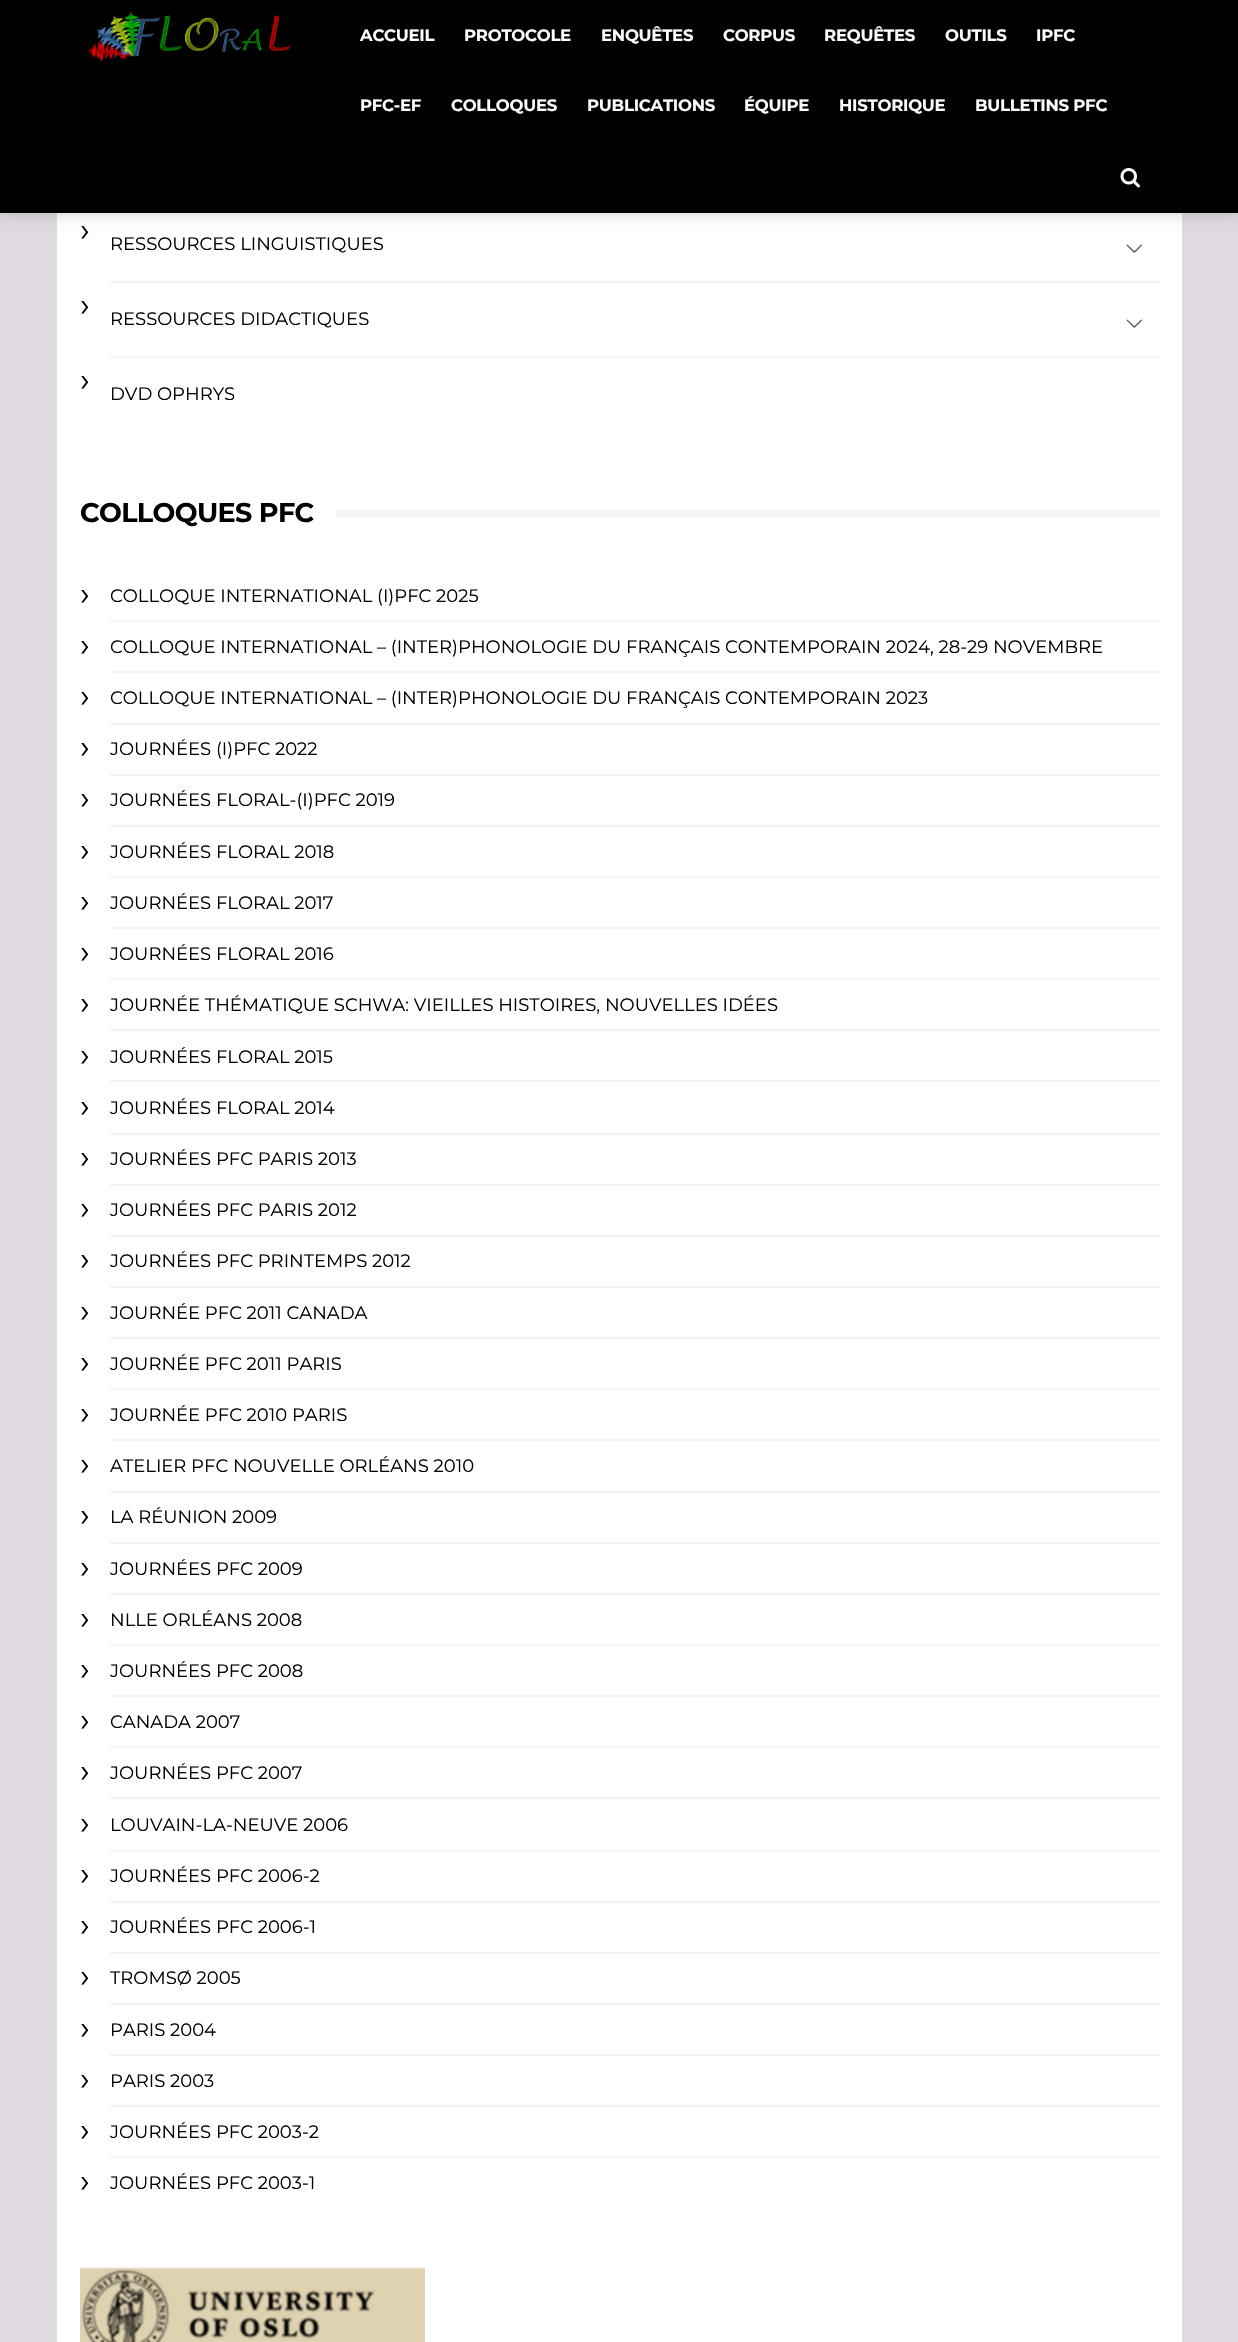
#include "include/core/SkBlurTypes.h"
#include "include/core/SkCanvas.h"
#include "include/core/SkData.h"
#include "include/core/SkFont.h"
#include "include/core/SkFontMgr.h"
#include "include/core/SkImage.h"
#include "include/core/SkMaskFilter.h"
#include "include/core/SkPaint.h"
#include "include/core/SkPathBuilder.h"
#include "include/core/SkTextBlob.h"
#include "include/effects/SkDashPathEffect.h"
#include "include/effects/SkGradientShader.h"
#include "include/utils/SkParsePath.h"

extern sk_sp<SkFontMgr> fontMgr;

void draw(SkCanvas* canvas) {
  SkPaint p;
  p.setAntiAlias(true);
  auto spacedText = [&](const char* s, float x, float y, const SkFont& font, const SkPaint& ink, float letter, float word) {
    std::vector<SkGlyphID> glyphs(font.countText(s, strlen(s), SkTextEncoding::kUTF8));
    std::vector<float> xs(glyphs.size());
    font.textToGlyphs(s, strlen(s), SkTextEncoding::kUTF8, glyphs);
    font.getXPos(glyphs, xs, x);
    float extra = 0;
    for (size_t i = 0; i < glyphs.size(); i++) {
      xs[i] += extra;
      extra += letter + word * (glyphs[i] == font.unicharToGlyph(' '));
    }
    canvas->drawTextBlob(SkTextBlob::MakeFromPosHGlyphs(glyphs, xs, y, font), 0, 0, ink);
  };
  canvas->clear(SkColorSetRGB(223, 217, 226));
  p.setColor(SK_ColorWHITE);
  canvas->drawRect(SkRect::MakeLTRB(57, 213, 1182, 2342), p);
  p.setColor(SkColorSetARGB(51, 0, 0, 0));
  p.setMaskFilter(SkMaskFilter::MakeBlur(kNormal_SkBlurStyle, 7.5f));
  canvas->drawRect(SkRect::MakeLTRB(0, -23, 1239, 213), p);
  p.setMaskFilter(nullptr);
  p.setColor(SK_ColorBLACK);
  canvas->drawRect(SkRect::MakeLTRB(0, 0, 1238, 213), p);
  canvas->drawImageRect(SkImages::DeferredFromEncodedData(SkData::MakeFromFileName("images/1.png")), SkRect::MakeLTRB(89, 12, 291, 64), SkSamplingOptions());
  canvas->drawImageRect(SkImages::DeferredFromEncodedData(SkData::MakeFromFileName("images/2.png")), SkRect::MakeLTRB(1120, 168, 1140, 188), SkSamplingOptions());
  p.setColor(SkColorSetRGB(243, 243, 243));
  canvas->drawRect(SkRect::MakeLTRB(110, 281, 1160, 283), p);
  canvas->drawImageRect(SkImages::DeferredFromEncodedData(SkData::MakeFromFileName("images/3.png")), SkRect::MakeLTRB(1126, 244, 1142, 253), SkSamplingOptions());
  canvas->drawRect(SkRect::MakeLTRB(110, 356, 1160, 358), p);
  canvas->drawImageRect(SkImages::DeferredFromEncodedData(SkData::MakeFromFileName("images/3.png")), SkRect::MakeLTRB(1126, 319, 1142, 328), SkSamplingOptions());
  p.setColor(SkColorSetRGB(245, 245, 245));
  canvas->drawRect(SkRect::MakeLTRB(336, 510, 1160, 518), p);
  p.setColor(SkColorSetRGB(243, 243, 243));
  canvas->drawRect(SkRect::MakeLTRB(110, 620, 1160, 622), p);
  canvas->drawRect(SkRect::MakeLTRB(110, 671, 1160, 673), p);
  canvas->drawRect(SkRect::MakeLTRB(110, 723, 1160, 725), p);
  canvas->drawRect(SkRect::MakeLTRB(110, 774, 1160, 776), p);
  canvas->drawRect(SkRect::MakeLTRB(110, 825, 1160, 827), p);
  canvas->drawRect(SkRect::MakeLTRB(110, 876, 1160, 878), p);
  canvas->drawRect(SkRect::MakeLTRB(110, 927, 1160, 929), p);
  canvas->drawRect(SkRect::MakeLTRB(110, 978, 1160, 980), p);
  canvas->drawRect(SkRect::MakeLTRB(110, 1029, 1160, 1031), p);
  canvas->drawRect(SkRect::MakeLTRB(110, 1080, 1160, 1082), p);
  canvas->drawRect(SkRect::MakeLTRB(110, 1133, 1160, 1135), p);
  canvas->drawRect(SkRect::MakeLTRB(110, 1184, 1160, 1186), p);
  canvas->drawRect(SkRect::MakeLTRB(110, 1235, 1160, 1237), p);
  canvas->drawRect(SkRect::MakeLTRB(110, 1286, 1160, 1288), p);
  canvas->drawRect(SkRect::MakeLTRB(110, 1337, 1160, 1339), p);
  canvas->drawRect(SkRect::MakeLTRB(110, 1388, 1160, 1390), p);
  canvas->drawRect(SkRect::MakeLTRB(110, 1439, 1160, 1441), p);
  canvas->drawRect(SkRect::MakeLTRB(110, 1491, 1160, 1493), p);
  canvas->drawRect(SkRect::MakeLTRB(110, 1542, 1160, 1544), p);
  canvas->drawRect(SkRect::MakeLTRB(110, 1593, 1160, 1595), p);
  canvas->drawRect(SkRect::MakeLTRB(110, 1644, 1160, 1646), p);
  canvas->drawRect(SkRect::MakeLTRB(110, 1695, 1160, 1697), p);
  canvas->drawRect(SkRect::MakeLTRB(110, 1746, 1160, 1748), p);
  canvas->drawRect(SkRect::MakeLTRB(110, 1797, 1160, 1799), p);
  canvas->drawRect(SkRect::MakeLTRB(110, 1850, 1160, 1852), p);
  canvas->drawRect(SkRect::MakeLTRB(110, 1901, 1160, 1903), p);
  canvas->drawRect(SkRect::MakeLTRB(110, 1952, 1160, 1954), p);
  canvas->drawRect(SkRect::MakeLTRB(110, 2003, 1160, 2005), p);
  canvas->drawRect(SkRect::MakeLTRB(110, 2054, 1160, 2056), p);
  canvas->drawRect(SkRect::MakeLTRB(110, 2105, 1160, 2107), p);
  canvas->drawRect(SkRect::MakeLTRB(110, 2156, 1160, 2158), p);
  canvas->drawImageRect(SkImages::DeferredFromEncodedData(SkData::MakeFromFileName("images/4.png")), SkRect::MakeLTRB(80, 2267, 425, 2342), SkSamplingOptions());
  SkFont font1(fontMgr->matchFamilyStyle("Montserrat", SkFontStyle::Bold()), 16.5f);
  font1.setSubpixel(true);
  p.setColor(SkColorSetRGB(252, 252, 252));
  spacedText("ACCUEIL", 360, 41, font1, p, -0.25f, 0);
  spacedText("PROTOCOLE", 464, 41, font1, p, -0.25f, 0);
  spacedText("ENQUÊTES", 601, 41, font1, p, -0.25f, 0);
  spacedText("CORPUS", 723, 41, font1, p, -0.25f, 0);
  spacedText("REQUÊTES", 824, 41, font1, p, -0.25f, 0);
  spacedText("OUTILS", 945, 41, font1, p, -0.25f, 0);
  spacedText("IPFC", 1036, 41, font1, p, -0.25f, 0);
  spacedText("PFC-EF", 360, 111, font1, p, -0.25f, 0);
  spacedText("COLLOQUES", 451, 111, font1, p, -0.25f, 0);
  spacedText("PUBLICATIONS", 587, 111, font1, p, -0.25f, 0);
  spacedText("ÉQUIPE", 744, 111, font1, p, -0.25f, 0);
  spacedText("HISTORIQUE", 839, 111, font1, p, -0.25f, 0);
  spacedText("BULLETINS PFC", 975, 111, font1, p, -0.25f, 0);
  SkFont font2(fontMgr->matchFamilyStyle("Montserrat", SkFontStyle::Normal()), 33);
  font2.setSubpixel(true);
  p.setColor(SkColorSetRGB(1, 1, 1));
  canvas->drawString("›", 80, 241, font2, p);
  SkFont font3(fontMgr->matchFamilyStyle("Montserrat", SkFontStyle::Normal()), 18);
  font3.setSubpixel(true);
  canvas->drawString("RESSOURCES LINGUISTIQUES", 110, 250, font3, p);
  canvas->drawString("›", 80, 316, font2, p);
  canvas->drawString("RESSOURCES DIDACTIQUES", 110, 325, font3, p);
  canvas->drawString("›", 80, 391, font2, p);
  canvas->drawString("DVD OPHRYS", 110, 400, font3, p);
  SkFont font4(fontMgr->matchFamilyStyle("Montserrat", SkFontStyle::Bold()), 27);
  font4.setSubpixel(true);
  spacedText("COLLOQUES PFC", 80, 522, font4, p, -0.6f, 0);
  canvas->drawString("›", 80, 605, font2, p);
  canvas->drawString("COLLOQUE INTERNATIONAL (I)PFC 2025", 110, 602, font3, p);
  canvas->drawString("›", 80, 656, font2, p);
  canvas->drawString("COLLOQUE INTERNATIONAL – (INTER)PHONOLOGIE DU FRANÇAIS CONTEMPORAIN 2024, 28-29 NOVEMBRE", 110, 653, font3, p);
  canvas->drawString("›", 80, 707, font2, p);
  canvas->drawString("COLLOQUE INTERNATIONAL – (INTER)PHONOLOGIE DU FRANÇAIS CONTEMPORAIN 2023", 110, 704, font3, p);
  canvas->drawString("›", 80, 758, font2, p);
  canvas->drawString("JOURNÉES (I)PFC 2022", 110, 755, font3, p);
  canvas->drawString("›", 80, 809, font2, p);
  canvas->drawString("JOURNÉES FLORAL-(I)PFC 2019", 110, 806, font3, p);
  canvas->drawString("›", 80, 861, font2, p);
  canvas->drawString("JOURNÉES FLORAL 2018", 110, 858, font3, p);
  canvas->drawString("›", 80, 912, font2, p);
  canvas->drawString("JOURNÉES FLORAL 2017", 110, 909, font3, p);
  canvas->drawString("›", 80, 963, font2, p);
  canvas->drawString("JOURNÉES FLORAL 2016", 110, 960, font3, p);
  canvas->drawString("›", 80, 1014, font2, p);
  canvas->drawString("JOURNÉE THÉMATIQUE SCHWA: VIEILLES HISTOIRES, NOUVELLES IDÉES", 110, 1011, font3, p);
  canvas->drawString("›", 80, 1066, font2, p);
  canvas->drawString("JOURNÉES FLORAL 2015", 110, 1063, font3, p);
  canvas->drawString("›", 80, 1117, font2, p);
  canvas->drawString("JOURNÉES FLORAL 2014", 110, 1114, font3, p);
  canvas->drawString("›", 80, 1168, font2, p);
  canvas->drawString("JOURNÉES PFC PARIS 2013", 110, 1165, font3, p);
  canvas->drawString("›", 80, 1219, font2, p);
  canvas->drawString("JOURNÉES PFC PARIS 2012", 110, 1216, font3, p);
  canvas->drawString("›", 80, 1270, font2, p);
  canvas->drawString("JOURNÉES PFC PRINTEMPS 2012", 110, 1267, font3, p);
  canvas->drawString("›", 80, 1322, font2, p);
  canvas->drawString("JOURNÉE PFC 2011 CANADA", 110, 1319, font3, p);
  canvas->drawString("›", 80, 1373, font2, p);
  canvas->drawString("JOURNÉE PFC 2011 PARIS", 110, 1370, font3, p);
  canvas->drawString("›", 80, 1424, font2, p);
  canvas->drawString("JOURNÉE PFC 2010 PARIS", 110, 1421, font3, p);
  canvas->drawString("›", 80, 1475, font2, p);
  canvas->drawString("ATELIER PFC NOUVELLE ORLÉANS 2010", 110, 1472, font3, p);
  canvas->drawString("›", 80, 1526, font2, p);
  canvas->drawString("LA RÉUNION 2009", 110, 1523, font3, p);
  canvas->drawString("›", 80, 1578, font2, p);
  canvas->drawString("JOURNÉES PFC 2009", 110, 1575, font3, p);
  canvas->drawString("›", 80, 1629, font2, p);
  canvas->drawString("NLLE ORLÉANS 2008", 110, 1626, font3, p);
  canvas->drawString("›", 80, 1680, font2, p);
  canvas->drawString("JOURNÉES PFC 2008", 110, 1677, font3, p);
  canvas->drawString("›", 80, 1731, font2, p);
  canvas->drawString("CANADA 2007", 110, 1728, font3, p);
  canvas->drawString("›", 80, 1782, font2, p);
  canvas->drawString("JOURNÉES PFC 2007", 110, 1779, font3, p);
  canvas->drawString("›", 80, 1834, font2, p);
  canvas->drawString("LOUVAIN-LA-NEUVE 2006", 110, 1831, font3, p);
  canvas->drawString("›", 80, 1885, font2, p);
  canvas->drawString("JOURNÉES PFC 2006-2", 110, 1882, font3, p);
  canvas->drawString("›", 80, 1936, font2, p);
  canvas->drawString("JOURNÉES PFC 2006-1", 110, 1933, font3, p);
  canvas->drawString("›", 80, 1987, font2, p);
  canvas->drawString("TROMSØ 2005", 110, 1984, font3, p);
  canvas->drawString("›", 80, 2039, font2, p);
  canvas->drawString("PARIS 2004", 110, 2036, font3, p);
  canvas->drawString("›", 80, 2090, font2, p);
  canvas->drawString("PARIS 2003", 110, 2087, font3, p);
  canvas->drawString("›", 80, 2141, font2, p);
  canvas->drawString("JOURNÉES PFC 2003-2", 110, 2138, font3, p);
  canvas->drawString("›", 80, 2192, font2, p);
  canvas->drawString("JOURNÉES PFC 2003-1", 110, 2189, font3, p);
}
